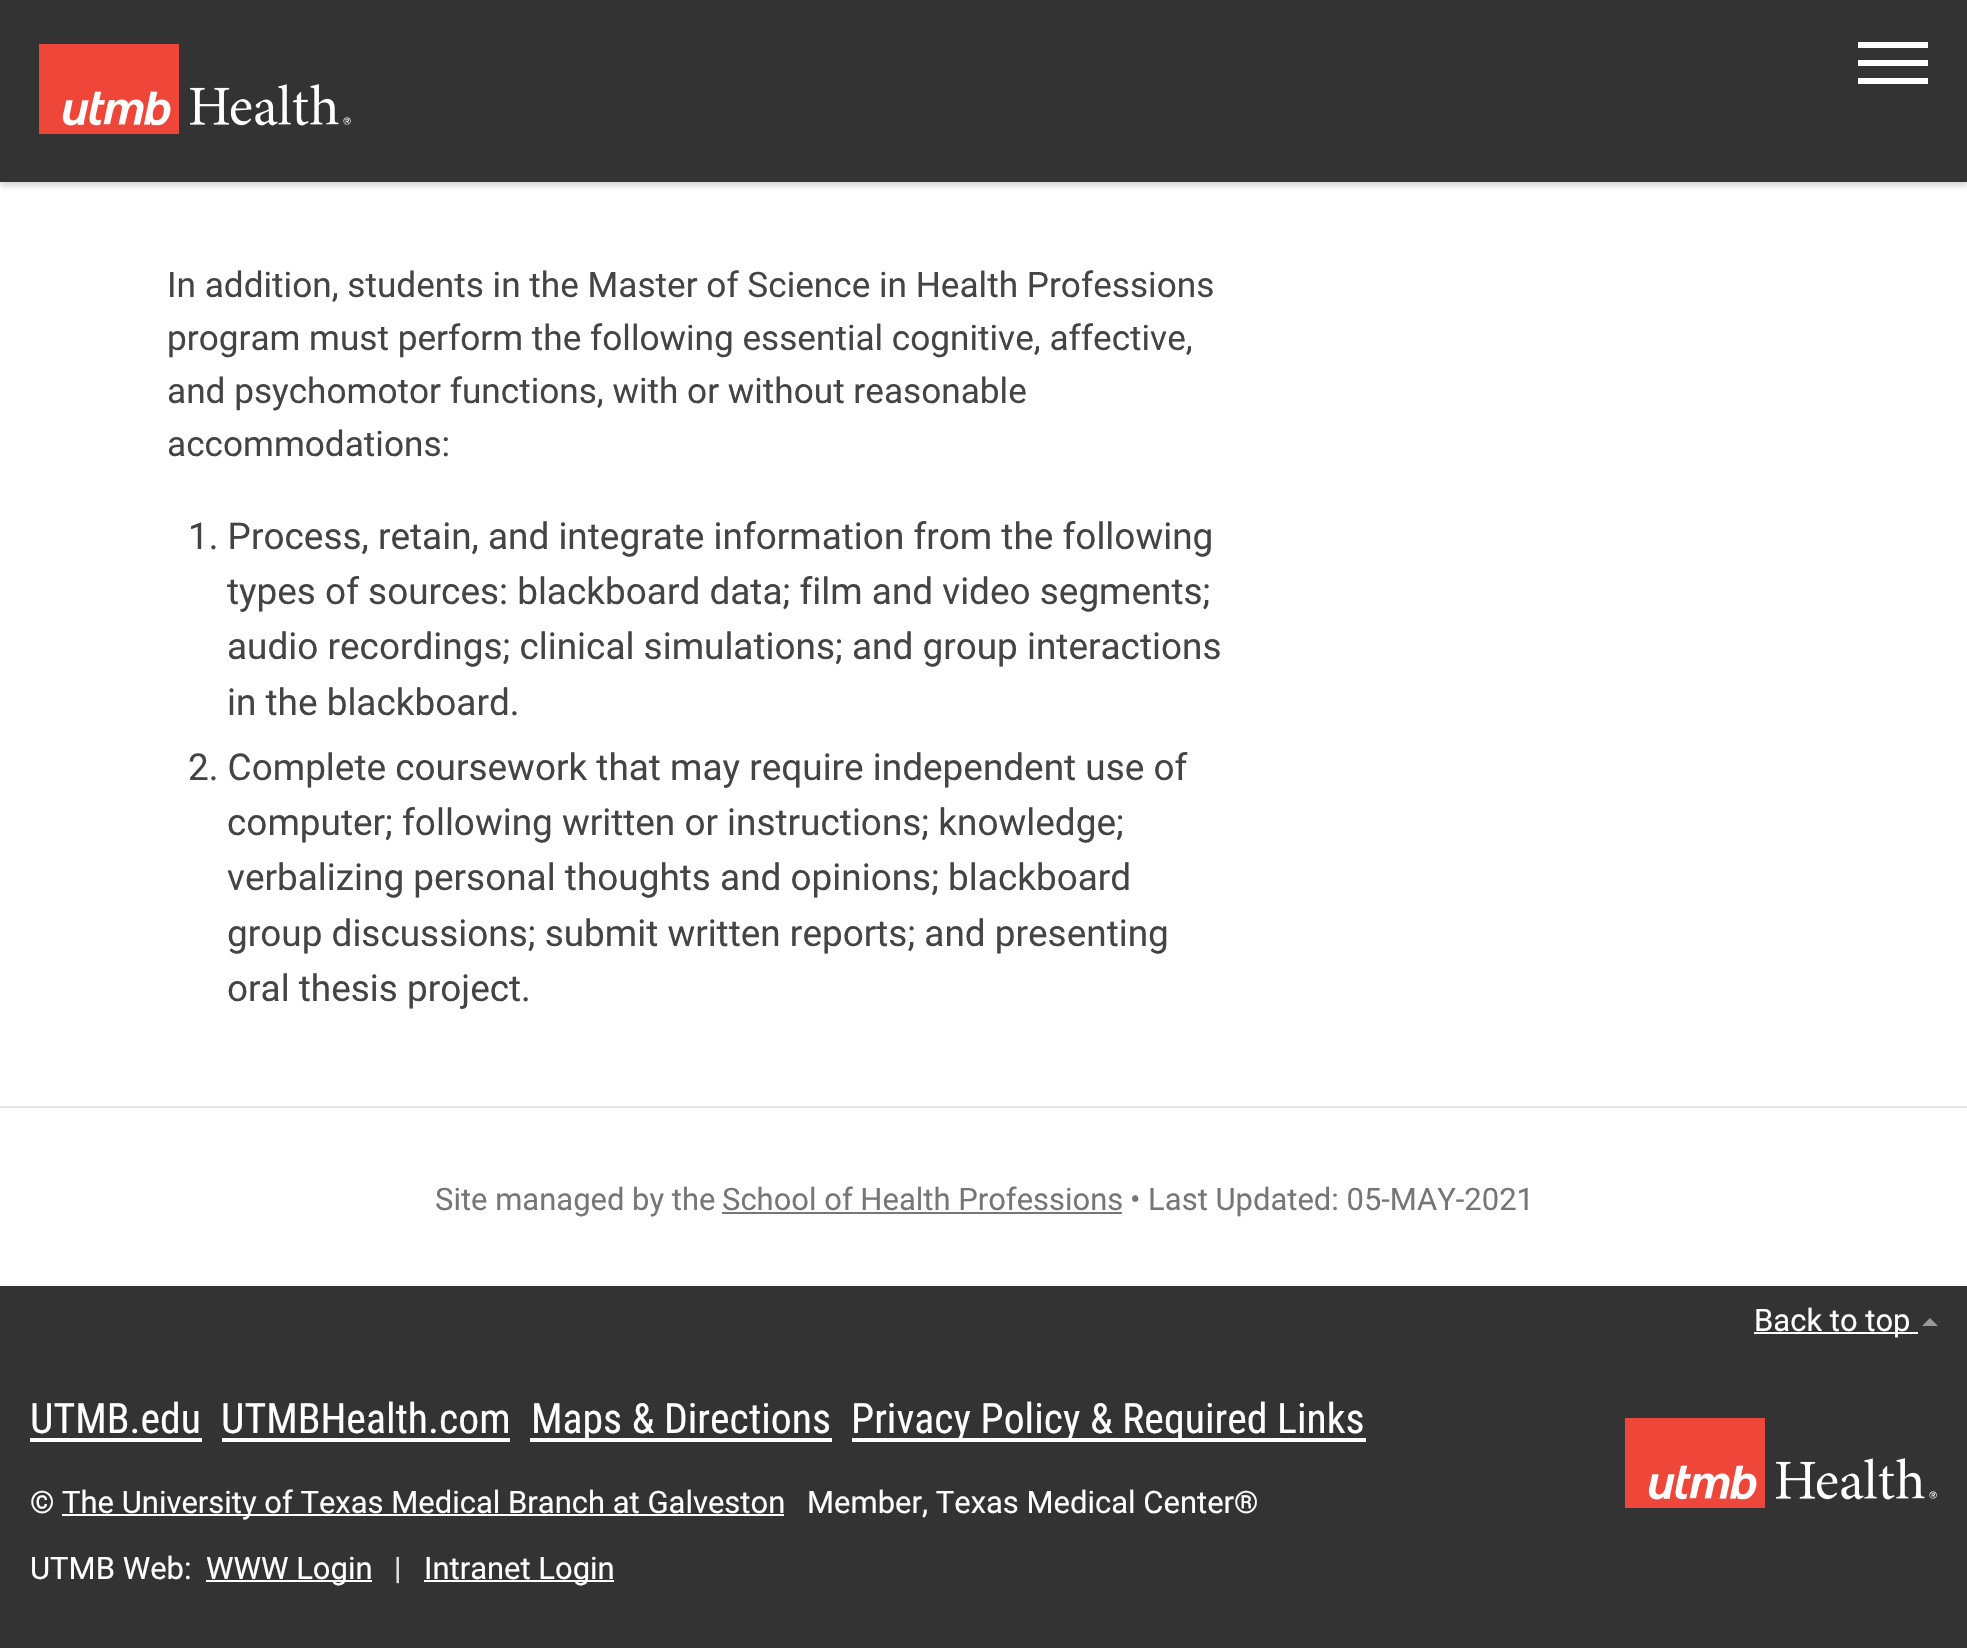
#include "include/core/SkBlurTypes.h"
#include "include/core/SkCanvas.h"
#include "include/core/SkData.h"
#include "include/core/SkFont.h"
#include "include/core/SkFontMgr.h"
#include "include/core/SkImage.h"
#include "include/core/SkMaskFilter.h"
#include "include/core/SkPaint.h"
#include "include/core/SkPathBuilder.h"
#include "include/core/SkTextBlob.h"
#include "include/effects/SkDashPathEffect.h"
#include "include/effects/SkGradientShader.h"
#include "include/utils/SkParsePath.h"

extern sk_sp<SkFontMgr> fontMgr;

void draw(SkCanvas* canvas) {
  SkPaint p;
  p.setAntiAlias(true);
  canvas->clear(SK_ColorWHITE);
  p.setColor(SkColorSetARGB(41, 0, 0, 0));
  p.setMaskFilter(SkMaskFilter::MakeBlur(kNormal_SkBlurStyle, 3));
  canvas->drawRect(SkRect::MakeLTRB(0, 4, 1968, 186), p);
  p.setMaskFilter(nullptr);
  p.setColor(SkColorSetRGB(51, 51, 51));
  canvas->drawRect(SkRect::MakeLTRB(0, 0, 1967, 182), p);
  canvas->drawImageRect(SkImages::DeferredFromEncodedData(SkData::MakeFromFileName("images/1.png")), SkRect::MakeLTRB(39, 44, 351, 134), SkSamplingOptions());
  p.setColor(SK_ColorWHITE);
  canvas->drawRect(SkRect::MakeLTRB(1858, 42, 1928, 48), p);
  canvas->drawRect(SkRect::MakeLTRB(1858, 60, 1928, 66), p);
  canvas->drawRect(SkRect::MakeLTRB(1858, 78, 1928, 84), p);
  p.setColor(SkColorSetRGB(229, 229, 229));
  canvas->drawRect(SkRect::MakeLTRB(0, 1106, 1967, 1108), p);
  p.setColor(SkColorSetRGB(118, 118, 118));
  canvas->drawRect(SkRect::MakeLTRB(722, 1212, 1122, 1214), p);
  p.setColor(SkColorSetRGB(51, 51, 51));
  canvas->drawRect(SkRect::MakeLTRB(0, 1286, 1967, 1648), p);
  p.setColor(SK_ColorWHITE);
  canvas->drawRect(SkRect::MakeLTRB(1754, 1332, 1918, 1334), p);
  p.setColor(SkColorSetRGB(153, 153, 153));
  canvas->drawPath(SkPathBuilder().moveTo(1938, 1326).lineTo(1922, 1326).lineTo(1930, 1318).close().detach(), p);
  p.setColor(SK_ColorWHITE);
  canvas->drawRect(SkRect::MakeLTRB(30, 1438, 202, 1442), p);
  canvas->drawRect(SkRect::MakeLTRB(222, 1438, 510, 1442), p);
  canvas->drawRect(SkRect::MakeLTRB(530, 1438, 832, 1442), p);
  canvas->drawRect(SkRect::MakeLTRB(852, 1438, 1366, 1442), p);
  canvas->drawImageRect(SkImages::DeferredFromEncodedData(SkData::MakeFromFileName("images/1.png")), SkRect::MakeLTRB(1625, 1418, 1937, 1508), SkSamplingOptions());
  canvas->drawRect(SkRect::MakeLTRB(62, 1514, 784, 1516), p);
  canvas->drawRect(SkRect::MakeLTRB(206, 1580, 372, 1582), p);
  canvas->drawRect(SkRect::MakeLTRB(424, 1580, 614, 1582), p);
  SkFont font1(fontMgr->matchFamilyStyle("Roboto", SkFontStyle::Normal()), 35.2f);
  font1.setSubpixel(true);
  p.setColor(SkColorSetRGB(68, 68, 68));
  canvas->drawString("In addition, students in the Master of Science in Health Professions", 167, 297, font1, p);
  canvas->drawString("program must perform the following essential cognitive, affective,", 167, 350, font1, p);
  canvas->drawString("and psychomotor functions, with or without reasonable", 167, 403, font1, p);
  canvas->drawString("accommodations:", 167, 456, font1, p);
  SkFont font2(fontMgr->matchFamilyStyle("Roboto", SkFontStyle::Normal()), 36.95f);
  font2.setSubpixel(true);
  canvas->drawString("1. Process, retain, and integrate information from the following", 188, 549, font2, p);
  canvas->drawString("types of sources: blackboard data; film and video segments;", 227, 604, font2, p);
  canvas->drawString("audio recordings; clinical simulations; and group interactions", 227, 659, font2, p);
  canvas->drawString("in the blackboard.", 227, 715, font2, p);
  canvas->drawString("2. Complete coursework that may require independent use of", 188, 780, font2, p);
  canvas->drawString("computer; following written or instructions; knowledge;", 227, 835, font2, p);
  canvas->drawString("verbalizing personal thoughts and opinions; blackboard", 227, 890, font2, p);
  canvas->drawString("group discussions; submit written reports; and presenting", 227, 946, font2, p);
  canvas->drawString("oral thesis project.", 227, 1001, font2, p);
  SkFont font3(fontMgr->matchFamilyStyle("Roboto", SkFontStyle::Normal()), 31);
  font3.setSubpixel(true);
  p.setColor(SkColorSetRGB(118, 118, 118));
  canvas->drawString("Site managed by the", 435, 1210, font3, p);
  canvas->drawString("School of Health Professions", 722, 1210, font3, p);
  canvas->drawString("• Last Updated: 05-MAY-2021", 1130, 1210, font3, p);
  p.setColor(SK_ColorWHITE);
  canvas->drawString("Back to top", 1754, 1331, font3, p);
  SkFont font4(fontMgr->matchFamilyStyle("Roboto Condensed", SkFontStyle::Normal()), 41.75f);
  font4.setSubpixel(true);
  canvas->drawString("UTMB.edu", 30, 1433, font4, p);
  canvas->drawString("UTMBHealth.com", 221, 1433, font4, p);
  canvas->drawString("Maps & Directions", 531, 1433, font4, p);
  canvas->drawString("Privacy Policy & Required Links", 851, 1433, font4, p);
  canvas->drawString("©", 30, 1513, font3, p);
  canvas->drawString("The University of Texas Medical Branch at Galveston", 62, 1513, font3, p);
  canvas->drawString("Member, Texas Medical Center®", 807, 1513, font3, p);
  canvas->drawString("UTMB Web:", 30, 1579, font3, p);
  canvas->drawString("WWW Login", 206, 1579, font3, p);
  p.setColor(SkColorSetRGB(226, 226, 226));
  canvas->drawString("|", 394, 1579, font3, p);
  p.setColor(SK_ColorWHITE);
  canvas->drawString("Intranet Login", 424, 1579, font3, p);
}
